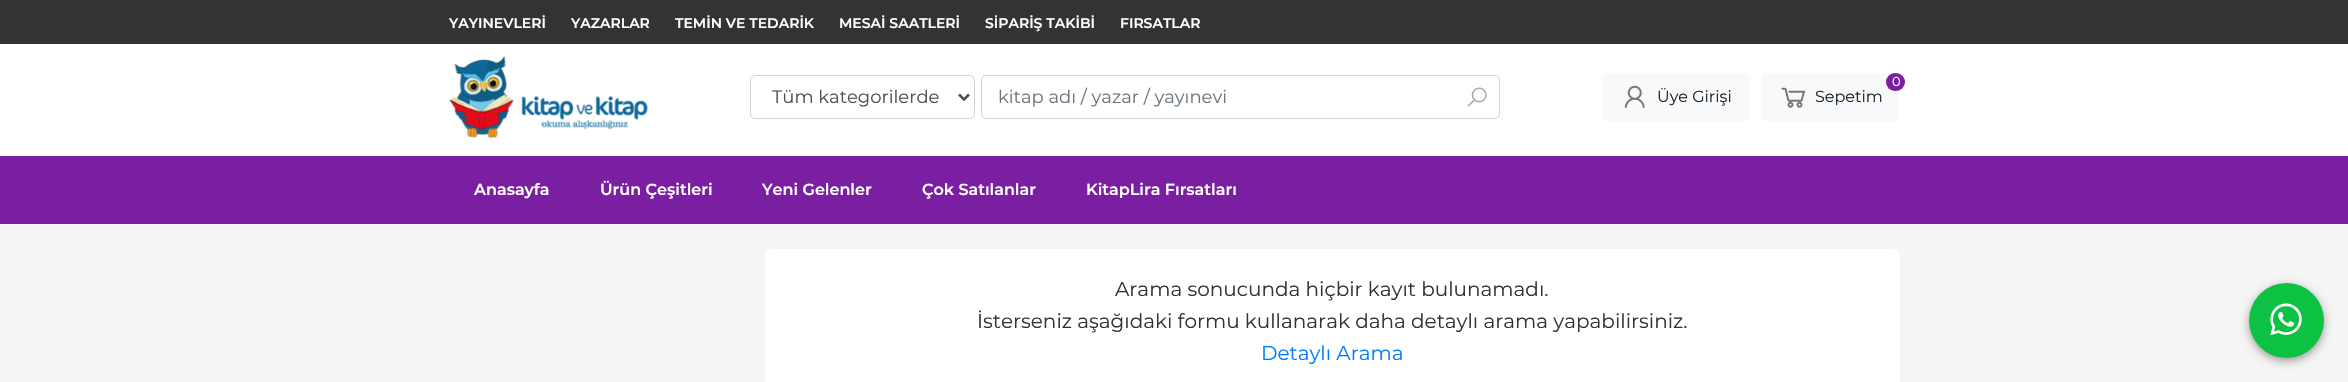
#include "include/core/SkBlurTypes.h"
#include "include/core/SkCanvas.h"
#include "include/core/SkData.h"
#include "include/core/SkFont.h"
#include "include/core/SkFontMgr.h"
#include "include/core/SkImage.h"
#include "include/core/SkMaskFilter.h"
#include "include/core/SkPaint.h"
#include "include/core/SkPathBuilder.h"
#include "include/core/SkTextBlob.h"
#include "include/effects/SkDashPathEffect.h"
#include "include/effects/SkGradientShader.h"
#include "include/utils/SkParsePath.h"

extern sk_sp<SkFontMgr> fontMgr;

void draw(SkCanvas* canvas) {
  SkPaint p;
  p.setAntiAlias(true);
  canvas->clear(SkColorSetRGB(245, 245, 245));
  p.setColor(SkColorSetRGB(51, 51, 51));
  canvas->drawRect(SkRect::MakeLTRB(0, 0, 2348, 44), p);
  p.setColor(SK_ColorWHITE);
  canvas->drawRect(SkRect::MakeLTRB(0, 44, 2348, 156), p);
  canvas->drawImageRect(SkImages::DeferredFromEncodedData(SkData::MakeFromFileName("images/1.png")), SkRect::MakeLTRB(449, 56, 648, 138), SkSamplingOptions());
  p.setStyle(SkPaint::kStroke_Style);
  p.setStrokeWidth(1);
  p.setColor(SkColorSetRGB(206, 212, 218));
  canvas->drawRoundRect(SkRect::MakeLTRB(750.5f, 75.5f, 974.5f, 118.5f), 4.5f, 4.5f, p);
  p.setStrokeWidth(2.5f);
  p.setColor(SkColorSetRGB(73, 80, 87));
  canvas->drawPath(SkPathBuilder().moveTo(959, 94.5f).lineTo(964, 99.5f).lineTo(969, 94.5f).detach(), p);
  p.setStrokeWidth(1);
  p.setColor(SkColorSetRGB(206, 212, 218));
  canvas->drawRoundRect(SkRect::MakeLTRB(981.5f, 75.5f, 1499.5f, 118.5f), 4.5f, 4.5f, p);
  canvas->drawImageRect(SkImages::DeferredFromEncodedData(SkData::MakeFromFileName("images/2.png")), SkRect::MakeLTRB(1467, 87, 1487, 107), SkSamplingOptions());
  p.setStyle(SkPaint::kFill_Style);
  p.setColor(SkColorSetRGB(248, 249, 250));
  canvas->drawRoundRect(SkRect::MakeLTRB(1603, 73, 1749, 121), 5, 5, p);
  canvas->drawImageRect(SkImages::DeferredFromEncodedData(SkData::MakeFromFileName("images/3.png")), SkRect::MakeLTRB(1624, 85, 1645, 108), SkSamplingOptions());
  canvas->drawRoundRect(SkRect::MakeLTRB(1761, 73, 1899, 121), 5, 5, p);
  p.setColor(SkColorSetRGB(123, 31, 162));
  canvas->drawRoundRect(SkRect::MakeLTRB(1886, 73, 1905, 91), 9, 9, p);
  canvas->drawImageRect(SkImages::DeferredFromEncodedData(SkData::MakeFromFileName("images/4.png")), SkRect::MakeLTRB(1781, 87, 1806, 108), SkSamplingOptions());
  canvas->drawRect(SkRect::MakeLTRB(0, 156, 2348, 224), p);
  p.setColor(SK_ColorWHITE);
  canvas->drawRoundRect(SkRect::MakeLTRB(765, 249, 1900, 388), 6, 6, p);
  p.setColor(SkColorSetARGB(59, 0, 0, 0));
  p.setMaskFilter(SkMaskFilter::MakeBlur(kNormal_SkBlurStyle, 4));
  canvas->drawRoundRect(SkRect::MakeLTRB(2249, 286, 2324, 361), 37.5f, 37.5f, p);
  p.setMaskFilter(nullptr);
  p.setColor(SkColorSetARGB(41, 0, 0, 0));
  p.setMaskFilter(SkMaskFilter::MakeBlur(kNormal_SkBlurStyle, 4));
  canvas->drawRoundRect(SkRect::MakeLTRB(2249, 286, 2324, 361), 37.5f, 37.5f, p);
  p.setMaskFilter(nullptr);
  p.setColor(SkColorSetRGB(13, 193, 67));
  canvas->drawCircle(2286.5f, 320.5f, 37.5f, p);
  canvas->drawImageRect(SkImages::DeferredFromEncodedData(SkData::MakeFromFileName("images/5.png")), SkRect::MakeLTRB(2270, 303, 2302, 336), SkSamplingOptions());
  SkFont font1(fontMgr->matchFamilyStyle("Montserrat", SkFontStyle(600, SkFontStyle::kNormal_Width, SkFontStyle::kUpright_Slant)), 14);
  font1.setSubpixel(true);
  p.setColor(SK_ColorWHITE);
  canvas->drawString("YAYINEVLERİ", 449, 28, font1, p);
  canvas->drawString("YAZARLAR", 571, 28, font1, p);
  canvas->drawString("TEMİN VE TEDARİK", 675, 28, font1, p);
  canvas->drawString("MESAİ SAATLERİ", 839, 28, font1, p);
  canvas->drawString("SİPARİŞ TAKİBİ", 985, 28, font1, p);
  canvas->drawString("FIRSATLAR", 1120, 28, font1, p);
  SkFont font2(fontMgr->matchFamilyStyle("Montserrat", SkFontStyle::Normal()), 18);
  font2.setSubpixel(true);
  p.setColor(SkColorSetRGB(73, 80, 87));
  canvas->drawString("Tüm kategorilerde", 772, 103, font2, p);
  p.setColor(SkColorSetRGB(108, 117, 125));
  canvas->drawString("kitap adı / yazar / yayınevi", 998, 103, font2, p);
  SkFont font3(fontMgr->matchFamilyStyle("Montserrat", SkFontStyle::Normal()), 16);
  font3.setSubpixel(true);
  p.setColor(SkColorSetRGB(33, 37, 41));
  canvas->drawString("Üye Girişi", 1657, 102, font3, p);
  SkFont font4(fontMgr->matchFamilyStyle("Montserrat", SkFontStyle::Normal()), 13);
  font4.setSubpixel(true);
  p.setColor(SK_ColorWHITE);
  canvas->drawString("0", 1892, 86, font4, p);
  p.setColor(SkColorSetRGB(33, 37, 41));
  canvas->drawString("Sepetim", 1815, 102, font3, p);
  SkFont font5(fontMgr->matchFamilyStyle("Montserrat", SkFontStyle(600, SkFontStyle::kNormal_Width, SkFontStyle::kUpright_Slant)), 16);
  font5.setSubpixel(true);
  p.setColor(SK_ColorWHITE);
  canvas->drawString("Anasayfa", 474, 195, font5, p);
  canvas->drawString("Ürün Çeşitleri", 600, 195, font5, p);
  canvas->drawString("Yeni Gelenler", 762, 195, font5, p);
  canvas->drawString("Çok Satılanlar", 922, 195, font5, p);
  canvas->drawString("KitapLira Fırsatları", 1086, 195, font5, p);
  SkFont font6(fontMgr->matchFamilyStyle("Montserrat", SkFontStyle::Normal()), 20);
  font6.setSubpixel(true);
  p.setColor(SkColorSetRGB(51, 51, 51));
  canvas->drawString("Arama sonucunda hiçbir kayıt bulunamadı.", 1115, 296, font6, p);
  canvas->drawString("İsterseniz aşağıdaki formu kullanarak daha detaylı arama yapabilirsiniz.", 977, 328, font6, p);
  p.setColor(SkColorSetRGB(0, 123, 255));
  canvas->drawString("Detaylı Arama", 1261, 360, font6, p);
}
